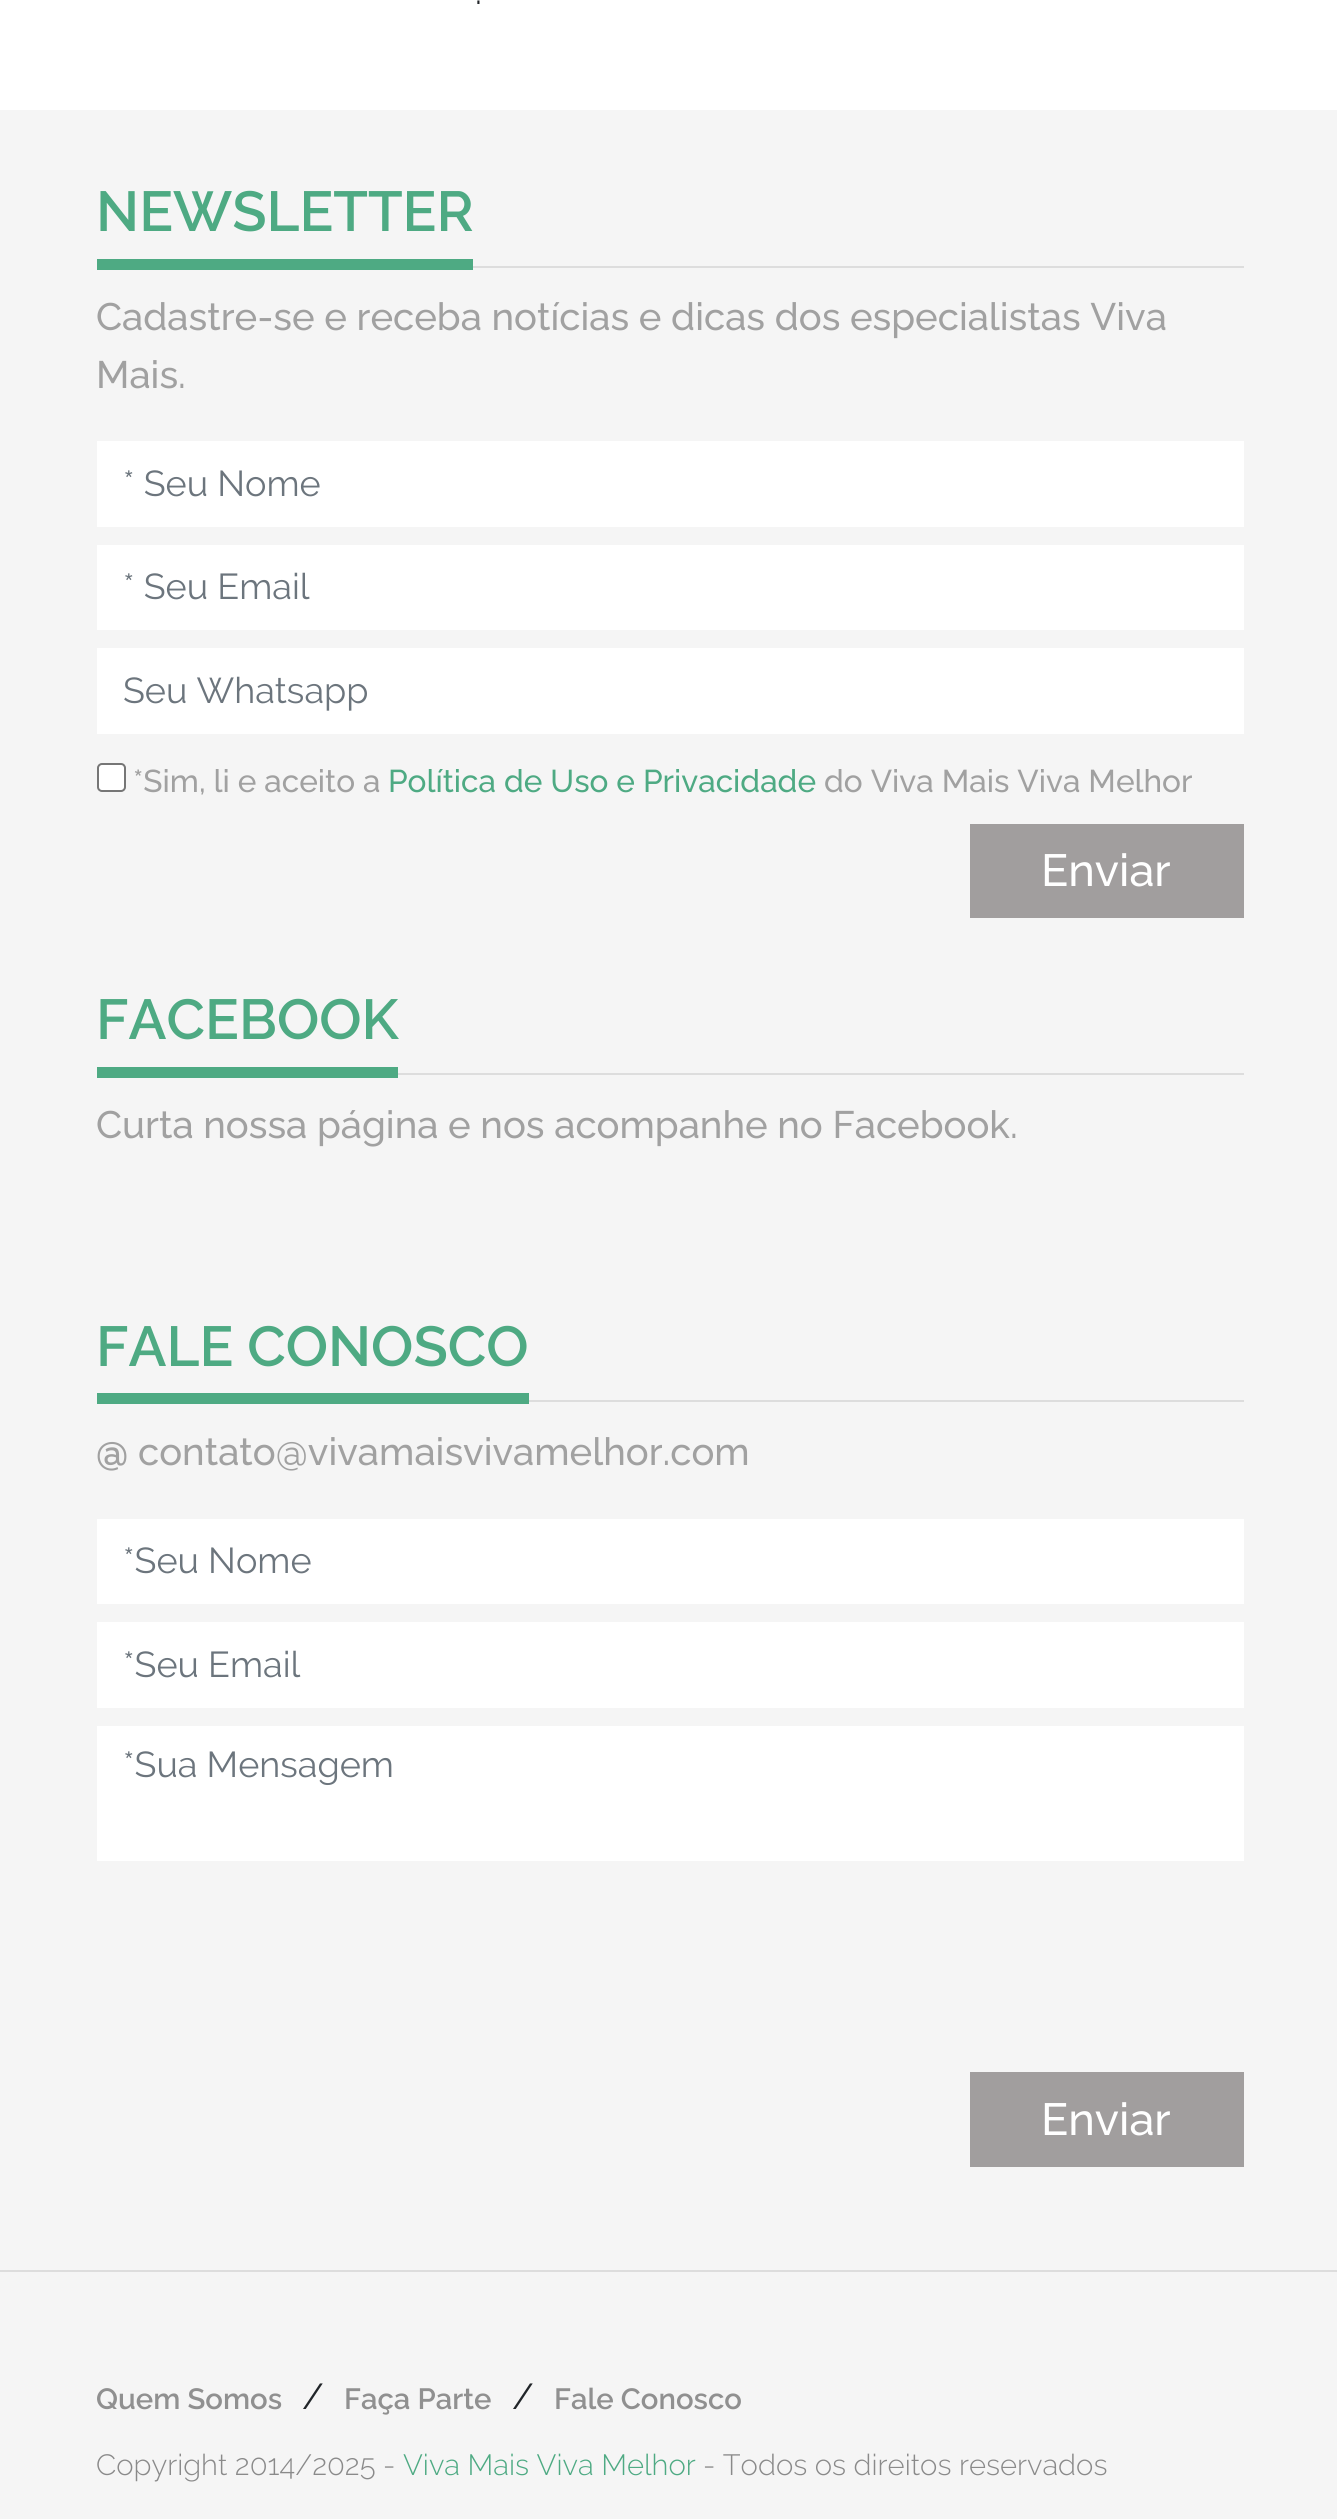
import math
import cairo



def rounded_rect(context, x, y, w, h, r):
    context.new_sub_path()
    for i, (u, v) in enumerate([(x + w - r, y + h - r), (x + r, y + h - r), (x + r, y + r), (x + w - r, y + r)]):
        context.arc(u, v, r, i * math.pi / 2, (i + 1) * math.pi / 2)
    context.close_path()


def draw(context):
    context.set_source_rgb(1, 1, 1)
    context.paint()
    context.set_source_rgb(245 / 255, 245 / 255, 245 / 255)
    context.rectangle(0, 110, 1337, 2409)
    context.fill()
    context.set_source_rgb(78 / 255, 170 / 255, 131 / 255)
    context.rectangle(97, 259, 376, 11)
    context.fill()
    context.set_source_rgb(221 / 255, 221 / 255, 221 / 255)
    context.rectangle(473, 266, 771, 2)
    context.fill()
    context.set_source_rgb(1, 1, 1)
    context.rectangle(97, 441, 1147, 86)
    context.fill()
    context.rectangle(97, 545, 1147, 85)
    context.fill()
    context.rectangle(97, 648, 1147, 86)
    context.fill()
    rounded_rect(context, 98, 764, 27, 27, 4)
    context.fill_preserve()
    context.set_source_rgb(118 / 255, 118 / 255, 118 / 255)
    context.stroke()
    context.set_source_rgb(161 / 255, 158 / 255, 158 / 255)
    context.rectangle(970, 824, 274, 94)
    context.fill()
    context.set_source_rgb(78 / 255, 170 / 255, 131 / 255)
    context.rectangle(97, 1067, 301, 11)
    context.fill()
    context.set_source_rgb(221 / 255, 221 / 255, 221 / 255)
    context.rectangle(398, 1073, 846, 2)
    context.fill()
    context.set_source_rgb(78 / 255, 170 / 255, 131 / 255)
    context.rectangle(97, 1393, 432, 11)
    context.fill()
    context.set_source_rgb(221 / 255, 221 / 255, 221 / 255)
    context.rectangle(529, 1400, 715, 2)
    context.fill()
    context.set_source_rgb(1, 1, 1)
    context.rectangle(97, 1519, 1147, 85)
    context.fill()
    context.rectangle(97, 1622, 1147, 86)
    context.fill()
    context.rectangle(97, 1726, 1147, 135)
    context.fill()
    context.set_source_rgb(161 / 255, 158 / 255, 158 / 255)
    context.rectangle(970, 2072, 274, 95)
    context.fill()
    context.set_source_rgb(221 / 255, 221 / 255, 221 / 255)
    context.rectangle(0, 2270, 1337, 2)
    context.fill()
    context.select_font_face("Raleway")
    context.set_font_size(36)
    context.set_source_rgb(33 / 255, 37 / 255, 41 / 255)
    context.move_to(475, 4)
    context.show_text(".")
    context.select_font_face("Raleway SemiBold")
    context.set_font_size(56.25)
    context.set_source_rgb(78 / 255, 170 / 255, 131 / 255)
    context.move_to(96, 231)
    context.show_text("NEWSLETTER")
    context.select_font_face("Raleway Medium")
    context.set_font_size(38.25)
    context.set_source_rgb(161 / 255, 161 / 255, 161 / 255)
    context.move_to(96, 330)
    context.show_text("Cadastre-se e receba notícias e dicas dos especialistas Viva")
    context.move_to(96, 388)
    context.show_text("Mais.")
    context.select_font_face("Raleway")
    context.set_font_size(36)
    context.set_source_rgb(108 / 255, 117 / 255, 125 / 255)
    context.move_to(123, 496)
    context.show_text("* Seu Nome")
    context.move_to(123, 599)
    context.show_text("* Seu Email")
    context.move_to(123, 703)
    context.show_text("Seu Whatsapp")
    context.select_font_face("Raleway Medium")
    context.set_font_size(31.5)
    context.set_source_rgb(161 / 255, 161 / 255, 161 / 255)
    context.move_to(133, 792)
    context.show_text("*Sim, li e aceito a")
    context.set_source_rgb(78 / 255, 170 / 255, 131 / 255)
    context.move_to(388, 792)
    context.show_text("Política de Uso e Privacidade")
    context.set_source_rgb(161 / 255, 161 / 255, 161 / 255)
    context.move_to(824, 792)
    context.show_text("do Viva Mais Viva Melhor")
    context.set_font_size(45)
    context.set_source_rgb(1, 1, 1)
    context.move_to(1041, 886)
    context.show_text("Enviar")
    context.select_font_face("Raleway SemiBold")
    context.set_font_size(56.25)
    context.set_source_rgb(78 / 255, 170 / 255, 131 / 255)
    context.move_to(96, 1039)
    context.show_text("FACEBOOK")
    context.select_font_face("Raleway Medium")
    context.set_font_size(38.25)
    context.set_source_rgb(161 / 255, 161 / 255, 161 / 255)
    context.move_to(96, 1138)
    context.show_text("Curta nossa página e nos acompanhe no Facebook.")
    context.select_font_face("Raleway SemiBold")
    context.set_font_size(56.25)
    context.set_source_rgb(78 / 255, 170 / 255, 131 / 255)
    context.move_to(96, 1366)
    context.show_text("FALE CONOSCO")
    context.select_font_face("Raleway", cairo.FontSlant.NORMAL, cairo.FontWeight.BOLD)
    context.set_font_size(38.25)
    context.set_source_rgb(161 / 255, 161 / 255, 161 / 255)
    context.move_to(96, 1465)
    context.show_text("@")
    context.select_font_face("Raleway Medium")
    context.move_to(138, 1465)
    context.show_text("contato@vivamaisvivamelhor.com")
    context.select_font_face("Raleway")
    context.set_font_size(36)
    context.set_source_rgb(108 / 255, 117 / 255, 125 / 255)
    context.move_to(123, 1573)
    context.show_text("*Seu Nome")
    context.move_to(123, 1677)
    context.show_text("*Seu Email")
    context.move_to(123, 1777)
    context.show_text("*Sua Mensagem")
    context.select_font_face("Raleway Medium")
    context.set_font_size(45)
    context.set_source_rgb(1, 1, 1)
    context.move_to(1041, 2135)
    context.show_text("Enviar")
    context.select_font_face("Raleway SemiBold")
    context.set_font_size(29.25)
    context.set_source_rgb(144 / 255, 144 / 255, 144 / 255)
    context.move_to(96, 2409)
    context.show_text("Quem Somos")
    context.select_font_face("Raleway")
    context.set_font_size(36)
    context.set_source_rgb(33 / 255, 37 / 255, 41 / 255)
    context.move_to(302, 2409)
    context.show_text("/")
    context.select_font_face("Raleway SemiBold")
    context.set_font_size(29.25)
    context.set_source_rgb(144 / 255, 144 / 255, 144 / 255)
    context.move_to(344, 2409)
    context.show_text("Faça Parte")
    context.select_font_face("Raleway")
    context.set_font_size(36)
    context.set_source_rgb(33 / 255, 37 / 255, 41 / 255)
    context.move_to(512, 2409)
    context.show_text("/")
    context.select_font_face("Raleway SemiBold")
    context.set_font_size(29.25)
    context.set_source_rgb(144 / 255, 144 / 255, 144 / 255)
    context.move_to(554, 2409)
    context.show_text("Fale Conosco")
    context.select_font_face("Raleway Light")
    context.set_source_rgb(138 / 255, 138 / 255, 138 / 255)
    context.move_to(96, 2475)
    context.show_text("Copyright 2014/2025 -")
    context.set_source_rgb(78 / 255, 170 / 255, 131 / 255)
    context.move_to(403, 2475)
    context.show_text("Viva Mais Viva Melhor")
    context.set_source_rgb(138 / 255, 138 / 255, 138 / 255)
    context.move_to(703, 2475)
    context.show_text("- Todos os direitos reservados")


surface = cairo.ImageSurface(cairo.Format.RGB24, 1337, 2519)
context = cairo.Context(surface)
options = cairo.FontOptions()
options.set_hint_metrics(cairo.HintMetrics.OFF)
options.set_hint_style(cairo.HintStyle.NONE)
context.set_font_options(options)
context.set_miter_limit(4)
draw(context)
surface.write_to_png("out.png")
